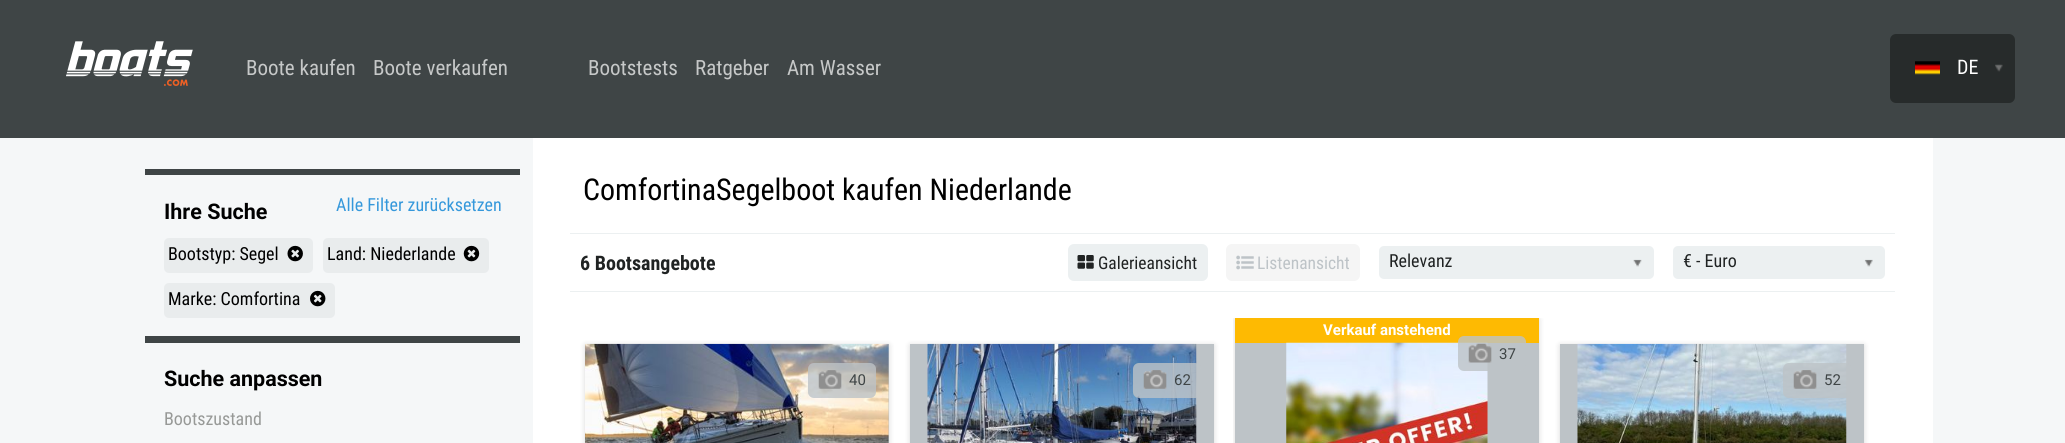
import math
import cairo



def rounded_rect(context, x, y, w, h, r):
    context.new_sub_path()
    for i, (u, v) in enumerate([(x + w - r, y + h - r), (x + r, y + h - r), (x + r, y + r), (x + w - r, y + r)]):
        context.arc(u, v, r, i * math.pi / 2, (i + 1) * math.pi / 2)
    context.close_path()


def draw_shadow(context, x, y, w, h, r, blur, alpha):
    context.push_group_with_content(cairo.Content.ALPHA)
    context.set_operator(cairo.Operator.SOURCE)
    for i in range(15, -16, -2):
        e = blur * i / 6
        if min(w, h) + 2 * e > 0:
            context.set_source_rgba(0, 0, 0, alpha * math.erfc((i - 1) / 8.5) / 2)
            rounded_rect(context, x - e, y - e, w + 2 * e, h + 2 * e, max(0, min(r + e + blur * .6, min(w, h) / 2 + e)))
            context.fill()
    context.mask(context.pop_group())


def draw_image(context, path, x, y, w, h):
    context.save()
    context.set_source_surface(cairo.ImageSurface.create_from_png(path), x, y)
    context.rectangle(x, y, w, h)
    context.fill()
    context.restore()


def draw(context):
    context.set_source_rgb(245 / 255, 247 / 255, 248 / 255)
    context.paint()
    context.set_source_rgb(63 / 255, 69 / 255, 70 / 255)
    context.rectangle(0, 0, 2065, 138)
    context.fill()
    draw_image(context, "images/1.png", 66, 41, 127, 45)
    context.set_source_rgb(39 / 255, 43 / 255, 43 / 255)
    rounded_rect(context, 1890, 34, 125, 69, 6)
    context.fill()
    draw_image(context, "images/2.png", 1915, 61, 25, 14)
    draw_image(context, "images/3.png", 1995, 64, 8, 8)
    context.set_source_rgb(63 / 255, 69 / 255, 70 / 255)
    context.rectangle(145, 169, 375, 6)
    context.fill()
    context.set_source_rgb(233 / 255, 236 / 255, 237 / 255)
    rounded_rect(context, 164, 238, 149, 35, 5)
    context.fill()
    draw_image(context, "images/4.png", 287, 245, 16, 17)
    rounded_rect(context, 323, 238, 166, 35, 5)
    context.fill()
    draw_image(context, "images/5.png", 463, 245, 17, 17)
    rounded_rect(context, 164, 283, 171, 35, 5)
    context.fill()
    draw_image(context, "images/6.png", 310, 290, 16, 17)
    context.set_source_rgb(63 / 255, 69 / 255, 70 / 255)
    context.rectangle(145, 336, 375, 7)
    context.fill()
    context.set_source_rgb(1, 1, 1)
    context.rectangle(533, 138, 1400, 305)
    context.fill()
    context.set_source_rgb(236 / 255, 240 / 255, 241 / 255)
    context.rectangle(570, 233, 1325, 1)
    context.fill()
    context.rectangle(570, 291, 1325, 1)
    context.fill()
    rounded_rect(context, 1068, 244, 140, 37, 6)
    context.fill()
    draw_image(context, "images/7.png", 1077, 255, 17, 14)
    context.set_source_rgb(245 / 255, 245 / 255, 245 / 255)
    rounded_rect(context, 1226, 244, 134, 37, 6)
    context.fill()
    draw_image(context, "images/8.png", 1236, 255, 18, 15)
    context.set_source_rgb(236 / 255, 240 / 255, 241 / 255)
    rounded_rect(context, 1379, 246, 275, 33, 5)
    context.fill()
    draw_image(context, "images/9.png", 1633, 259, 9, 8)
    rounded_rect(context, 1673, 246, 212, 33, 5)
    context.fill()
    draw_image(context, "images/10.png", 1864, 259, 9, 8)
    context.save()
    context.rectangle(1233, 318, 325, 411)
    context.clip()
    context.set_source_rgb(0, 0, 0)
    draw_shadow(context, 1235, 319, 304, 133, 0, 3, 0.15)
    context.restore()
    context.set_source_rgb(254 / 255, 186 / 255, 2 / 255)
    context.rectangle(1235, 318, 304, 25)
    context.fill()
    context.set_source_rgb(189 / 255, 195 / 255, 199 / 255)
    context.rectangle(1235, 343, 304, 100)
    context.fill()
    draw_image(context, "images/11.png", 1286, 342, 202, 101)
    context.set_source_rgba(189 / 255, 195 / 255, 199 / 255, 0.8)
    rounded_rect(context, 1458, 336, 68, 35, 6)
    context.fill()
    draw_image(context, "images/12.png", 1468, 343, 24, 20)
    context.set_source_rgb(0, 0, 0)
    draw_shadow(context, 585, 345, 304, 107, 0, 3, 0.15)
    context.set_source_rgb(189 / 255, 195 / 255, 199 / 255)
    context.rectangle(888, 344, 1, 99)
    context.fill()
    draw_image(context, "images/13.png", 585, 343, 304, 100)
    context.set_source_rgba(189 / 255, 195 / 255, 199 / 255, 0.8)
    rounded_rect(context, 808, 363, 68, 35, 6)
    context.fill()
    draw_image(context, "images/14.png", 818, 370, 24, 19)
    context.set_source_rgb(0, 0, 0)
    draw_shadow(context, 910, 345, 304, 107, 0, 3, 0.15)
    context.set_source_rgb(189 / 255, 195 / 255, 199 / 255)
    context.rectangle(910, 344, 304, 99)
    context.fill()
    draw_image(context, "images/15.png", 927, 343, 270, 100)
    context.set_source_rgba(189 / 255, 195 / 255, 199 / 255, 0.8)
    rounded_rect(context, 1133, 363, 68, 35, 6)
    context.fill()
    draw_image(context, "images/16.png", 1143, 370, 24, 19)
    context.set_source_rgb(0, 0, 0)
    draw_shadow(context, 1560, 345, 304, 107, 0, 3, 0.15)
    context.set_source_rgb(189 / 255, 195 / 255, 199 / 255)
    context.rectangle(1560, 344, 304, 99)
    context.fill()
    draw_image(context, "images/17.png", 1577, 343, 270, 100)
    context.set_source_rgba(189 / 255, 195 / 255, 199 / 255, 0.8)
    rounded_rect(context, 1783, 363, 68, 35, 6)
    context.fill()
    draw_image(context, "images/18.png", 1793, 370, 24, 19)
    context.select_font_face("Roboto Condensed")
    context.set_font_size(21)
    context.set_source_rgb(198 / 255, 200 / 255, 200 / 255)
    context.move_to(246, 75)
    context.show_text("Boote kaufen")
    context.move_to(373, 75)
    context.show_text("Boote verkaufen")
    context.move_to(588, 75)
    context.show_text("Bootstests")
    context.move_to(695, 75)
    context.show_text("Ratgeber")
    context.move_to(787, 75)
    context.show_text("Am Wasser")
    context.set_font_size(20)
    context.set_source_rgb(1, 1, 1)
    context.move_to(1957, 74)
    context.show_text("DE")
    context.select_font_face("Roboto", cairo.FontSlant.NORMAL, cairo.FontWeight.BOLD)
    context.set_font_size(21.5)
    context.set_source_rgb(0, 0, 0)
    context.move_to(164, 219)
    context.show_text("Ihre Suche")
    context.select_font_face("Roboto Condensed")
    context.set_font_size(18)
    context.set_source_rgb(53 / 255, 152 / 255, 219 / 255)
    context.move_to(336, 211)
    context.show_text("Alle Filter zurücksetzen")
    context.set_source_rgb(0, 0, 0)
    context.move_to(168, 260)
    context.show_text("Bootstyp: Segel")
    context.move_to(327, 260)
    context.show_text("Land: Niederlande")
    context.move_to(168, 305)
    context.show_text("Marke: Comfortina")
    context.select_font_face("Roboto", cairo.FontSlant.NORMAL, cairo.FontWeight.BOLD)
    context.set_font_size(21.5)
    context.move_to(164, 386)
    context.show_text("Suche anpassen")
    context.select_font_face("Roboto Condensed")
    context.set_font_size(18)
    context.set_source_rgb(151 / 255, 153 / 255, 151 / 255)
    context.move_to(164, 425)
    context.show_text("Bootszustand")
    context.set_font_size(30)
    context.set_source_rgb(0, 0, 0)
    context.move_to(583, 200)
    context.show_text("ComfortinaSegelboot kaufen Niederlande")
    context.select_font_face("Roboto Condensed", cairo.FontSlant.NORMAL, cairo.FontWeight.BOLD)
    context.set_font_size(20)
    context.set_source_rgb(32 / 255, 35 / 255, 35 / 255)
    context.move_to(580, 270)
    context.show_text("6 Bootsangebote")
    context.select_font_face("Roboto Condensed")
    context.set_font_size(17.5)
    context.move_to(1098, 269)
    context.show_text("Galerieansicht")
    context.set_source_rgb(189 / 255, 195 / 255, 199 / 255)
    context.move_to(1257, 269)
    context.show_text("Listenansicht")
    context.set_font_size(18)
    context.set_source_rgb(32 / 255, 35 / 255, 35 / 255)
    context.move_to(1389, 267)
    context.show_text("Relevanz")
    context.move_to(1683, 267)
    context.show_text("€ - Euro")
    context.select_font_face("Roboto", cairo.FontSlant.NORMAL, cairo.FontWeight.BOLD)
    context.set_font_size(15)
    context.set_source_rgb(1, 1, 1)
    context.move_to(1323, 335)
    context.show_text("Verkauf anstehend")
    context.select_font_face("Roboto")
    context.set_source_rgb(63 / 255, 69 / 255, 70 / 255)
    context.move_to(1499, 359)
    context.show_text("37")
    context.move_to(849, 385)
    context.show_text("40")
    context.move_to(1174, 385)
    context.show_text("62")
    context.move_to(1824, 385)
    context.show_text("52")


surface = cairo.ImageSurface(cairo.Format.RGB24, 2065, 443)
context = cairo.Context(surface)
options = cairo.FontOptions()
options.set_hint_metrics(cairo.HintMetrics.OFF)
options.set_hint_style(cairo.HintStyle.NONE)
context.set_font_options(options)
context.set_miter_limit(4)
draw(context)
surface.write_to_png("out.png")
